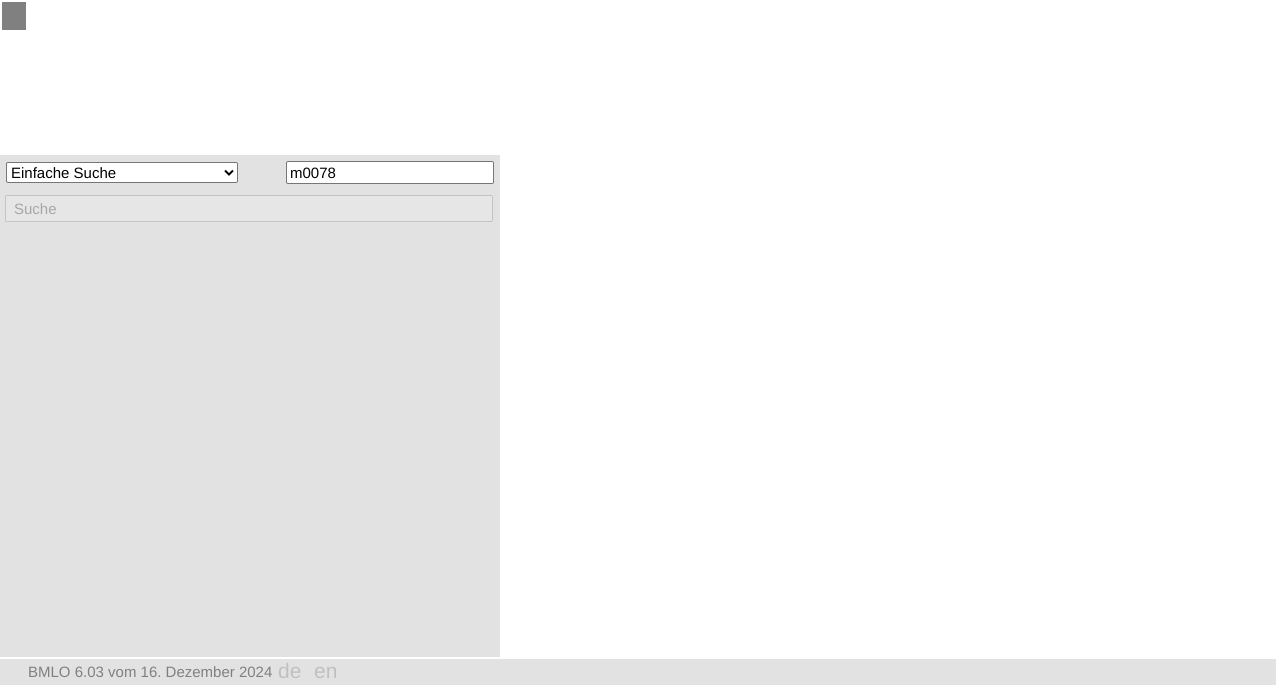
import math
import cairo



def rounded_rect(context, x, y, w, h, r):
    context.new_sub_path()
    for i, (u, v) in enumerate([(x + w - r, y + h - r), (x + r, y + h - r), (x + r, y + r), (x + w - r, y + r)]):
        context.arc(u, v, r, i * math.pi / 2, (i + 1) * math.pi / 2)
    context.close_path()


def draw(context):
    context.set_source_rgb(1, 1, 1)
    context.paint()
    context.set_source_rgb(128 / 255, 128 / 255, 128 / 255)
    context.rectangle(2, 2, 24, 28)
    context.fill()
    context.set_source_rgb(226 / 255, 226 / 255, 226 / 255)
    context.rectangle(0, 155, 500, 502)
    context.fill()
    context.set_source_rgb(1, 1, 1)
    rounded_rect(context, 6.5, 162.5, 231, 20, 1.5)
    context.fill_preserve()
    context.set_source_rgb(118 / 255, 118 / 255, 118 / 255)
    context.set_line_width(1)
    context.stroke()
    context.new_path()
    context.move_to(225, 170.5)
    context.line_to(229, 174.5)
    context.line_to(233, 170.5)
    context.set_source_rgb(0, 0, 0)
    context.set_line_width(2)
    context.stroke()
    context.set_source_rgb(1, 1, 1)
    rounded_rect(context, 286.5, 161.5, 207, 22, 1.5)
    context.fill_preserve()
    context.set_source_rgb(118 / 255, 118 / 255, 118 / 255)
    context.set_line_width(1)
    context.stroke()
    context.set_source_rgb(230 / 255, 230 / 255, 230 / 255)
    rounded_rect(context, 5.5, 195.5, 487, 26, 1.5)
    context.fill_preserve()
    context.set_source_rgb(196 / 255, 196 / 255, 196 / 255)
    context.stroke()
    context.set_source_rgb(226 / 255, 226 / 255, 226 / 255)
    context.rectangle(0, 659, 1276, 26)
    context.fill()
    context.select_font_face("Liberation Sans")
    context.set_font_size(15)
    context.set_source_rgb(0, 0, 0)
    context.move_to(11, 178)
    context.show_text("Einfache Suche")
    context.move_to(290, 178)
    context.show_text("m0078")
    context.set_source_rgb(166 / 255, 166 / 255, 166 / 255)
    context.move_to(14, 214)
    context.show_text("Suche")
    context.set_source_rgb(128 / 255, 128 / 255, 128 / 255)
    context.move_to(28, 677)
    context.show_text("BMLO 6.03 vom 16. Dezember 2024")
    context.set_font_size(21)
    context.set_source_rgb(192 / 255, 192 / 255, 192 / 255)
    context.move_to(278, 678)
    context.show_text("de")
    context.move_to(314, 678)
    context.show_text("en")


surface = cairo.ImageSurface(cairo.Format.RGB24, 1276, 685)
context = cairo.Context(surface)
options = cairo.FontOptions()
options.set_hint_metrics(cairo.HintMetrics.OFF)
options.set_hint_style(cairo.HintStyle.NONE)
context.set_font_options(options)
context.set_miter_limit(4)
draw(context)
surface.write_to_png("out.png")
